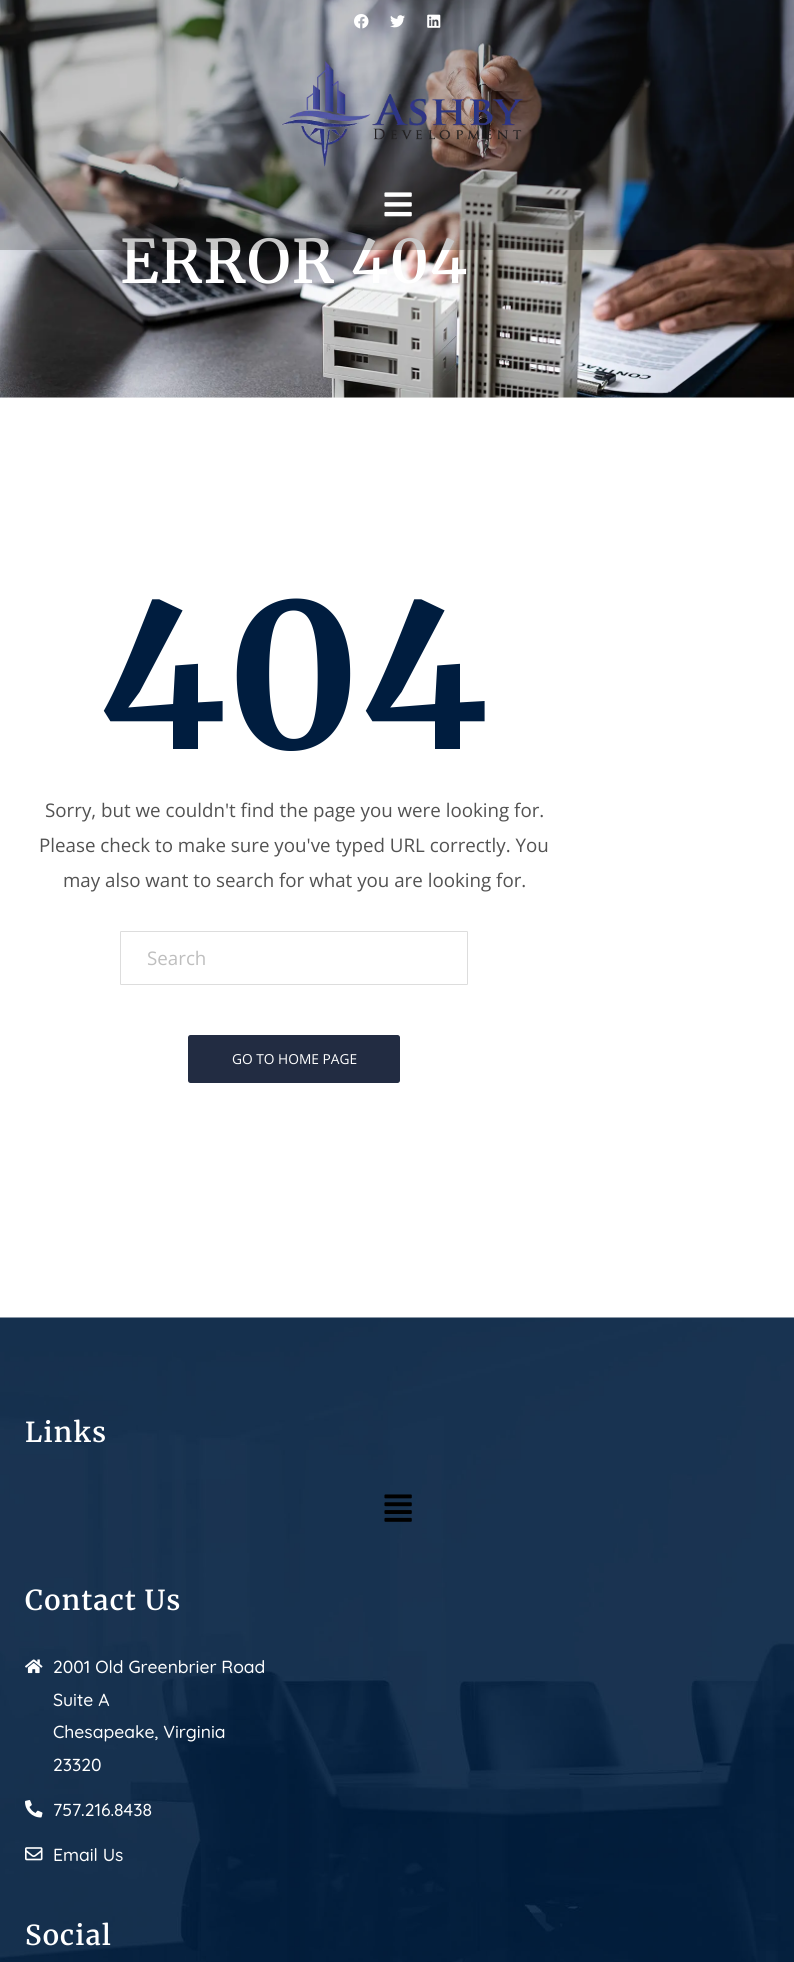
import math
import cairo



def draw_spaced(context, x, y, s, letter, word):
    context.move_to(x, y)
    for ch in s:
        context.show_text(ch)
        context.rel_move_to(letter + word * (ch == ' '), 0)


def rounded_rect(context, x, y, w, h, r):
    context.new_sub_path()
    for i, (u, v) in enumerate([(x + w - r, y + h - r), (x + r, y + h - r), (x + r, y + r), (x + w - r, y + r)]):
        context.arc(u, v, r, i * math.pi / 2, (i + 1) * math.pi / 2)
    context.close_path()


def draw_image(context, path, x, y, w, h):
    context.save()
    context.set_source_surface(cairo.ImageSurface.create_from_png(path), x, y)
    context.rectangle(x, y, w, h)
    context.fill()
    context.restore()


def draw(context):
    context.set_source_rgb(1, 1, 1)
    context.paint()
    context.set_source_rgb(246 / 255, 246 / 255, 246 / 255)
    context.rectangle(0, 397, 794, 1)
    context.fill()
    draw_image(context, "images/6.png", 0, 0, 794, 398)
    context.set_source_rgba(34 / 255, 34 / 255, 34 / 255, 0.25)
    context.rectangle(0, 0, 794, 43)
    context.fill()
    draw_image(context, "images/1.png", 354, 14, 15, 15)
    draw_image(context, "images/2.png", 390, 15, 15, 13)
    draw_image(context, "images/3.png", 427, 14, 14, 14)
    rounded_rect(context, 120.5, 931.5, 347, 53, 0.5)
    context.set_source_rgb(221 / 255, 221 / 255, 221 / 255)
    context.set_line_width(1)
    context.stroke()
    context.set_source_rgb(34 / 255, 44 / 255, 66 / 255)
    rounded_rect(context, 188, 1035, 212, 48, 2.5)
    context.fill()
    draw_image(context, "images/7.png", 0, 1317, 794, 645)
    draw_image(context, "images/8.png", 384, 1494, 28, 28)
    draw_image(context, "images/9.png", 25, 1659, 18, 15)
    draw_image(context, "images/10.png", 25, 1800, 18, 18)
    draw_image(context, "images/11.png", 25, 1847, 18, 14)
    context.select_font_face("Merriweather SemiBold")
    context.set_font_size(60)
    context.set_source_rgb(1, 1, 1)
    draw_spaced(context, 120, 283, "ERROR 404", 1.25, 0)
    context.set_source_rgba(34 / 255, 34 / 255, 34 / 255, 0.25)
    context.rectangle(0, 43, 794, 207)
    context.fill()
    draw_image(context, "images/5.png", 384, 192, 28, 25)
    draw_image(context, "images/4.png", 281, 61, 242, 106)
    context.select_font_face("Merriweather", cairo.FontSlant.NORMAL, cairo.FontWeight.BOLD)
    context.set_font_size(200)
    context.set_source_rgb(0, 29 / 255, 63 / 255)
    draw_spaced(context, 99, 749, "404", 1.25, 0)
    context.select_font_face("Open Sans")
    context.set_font_size(18.75)
    context.set_source_rgb(82 / 255, 82 / 255, 82 / 255)
    context.move_to(45, 817)
    context.show_text("Sorry, but we couldn't find the page you were looking for.")
    context.move_to(39, 852)
    context.show_text("Please check to make sure you've typed URL correctly. You")
    context.move_to(63, 887)
    context.show_text("may also want to search for what you are looking for.")
    context.set_source_rgb(190 / 255, 190 / 255, 190 / 255)
    context.move_to(147, 965)
    context.show_text("Search")
    context.set_font_size(13.75)
    context.set_source_rgb(1, 1, 1)
    context.move_to(232, 1064)
    context.show_text("GO TO HOME PAGE")
    context.select_font_face("Merriweather SemiBold")
    context.set_font_size(27.5)
    draw_spaced(context, 25, 1442, "Links", 1.25, 0)
    draw_spaced(context, 25, 1610, "Contact Us", 1.25, 0)
    context.select_font_face("Quicksand Medium")
    context.set_font_size(17.5)
    context.move_to(53, 1673)
    context.show_text("2001 Old Greenbrier Road")
    context.move_to(53, 1706)
    context.show_text("Suite A")
    context.move_to(53, 1738)
    context.show_text("Chesapeake, Virginia")
    context.move_to(53, 1771)
    context.show_text("23320")
    context.move_to(53, 1816)
    context.show_text("757.216.8438")
    context.move_to(53, 1861)
    context.show_text("Email Us")
    context.select_font_face("Merriweather SemiBold")
    context.set_font_size(27.5)
    draw_spaced(context, 25, 1945, "Social", 1.25, 0)


surface = cairo.ImageSurface(cairo.Format.RGB24, 794, 1962)
context = cairo.Context(surface)
options = cairo.FontOptions()
options.set_hint_metrics(cairo.HintMetrics.OFF)
options.set_hint_style(cairo.HintStyle.NONE)
context.set_font_options(options)
context.set_miter_limit(4)
draw(context)
surface.write_to_png("out.png")
